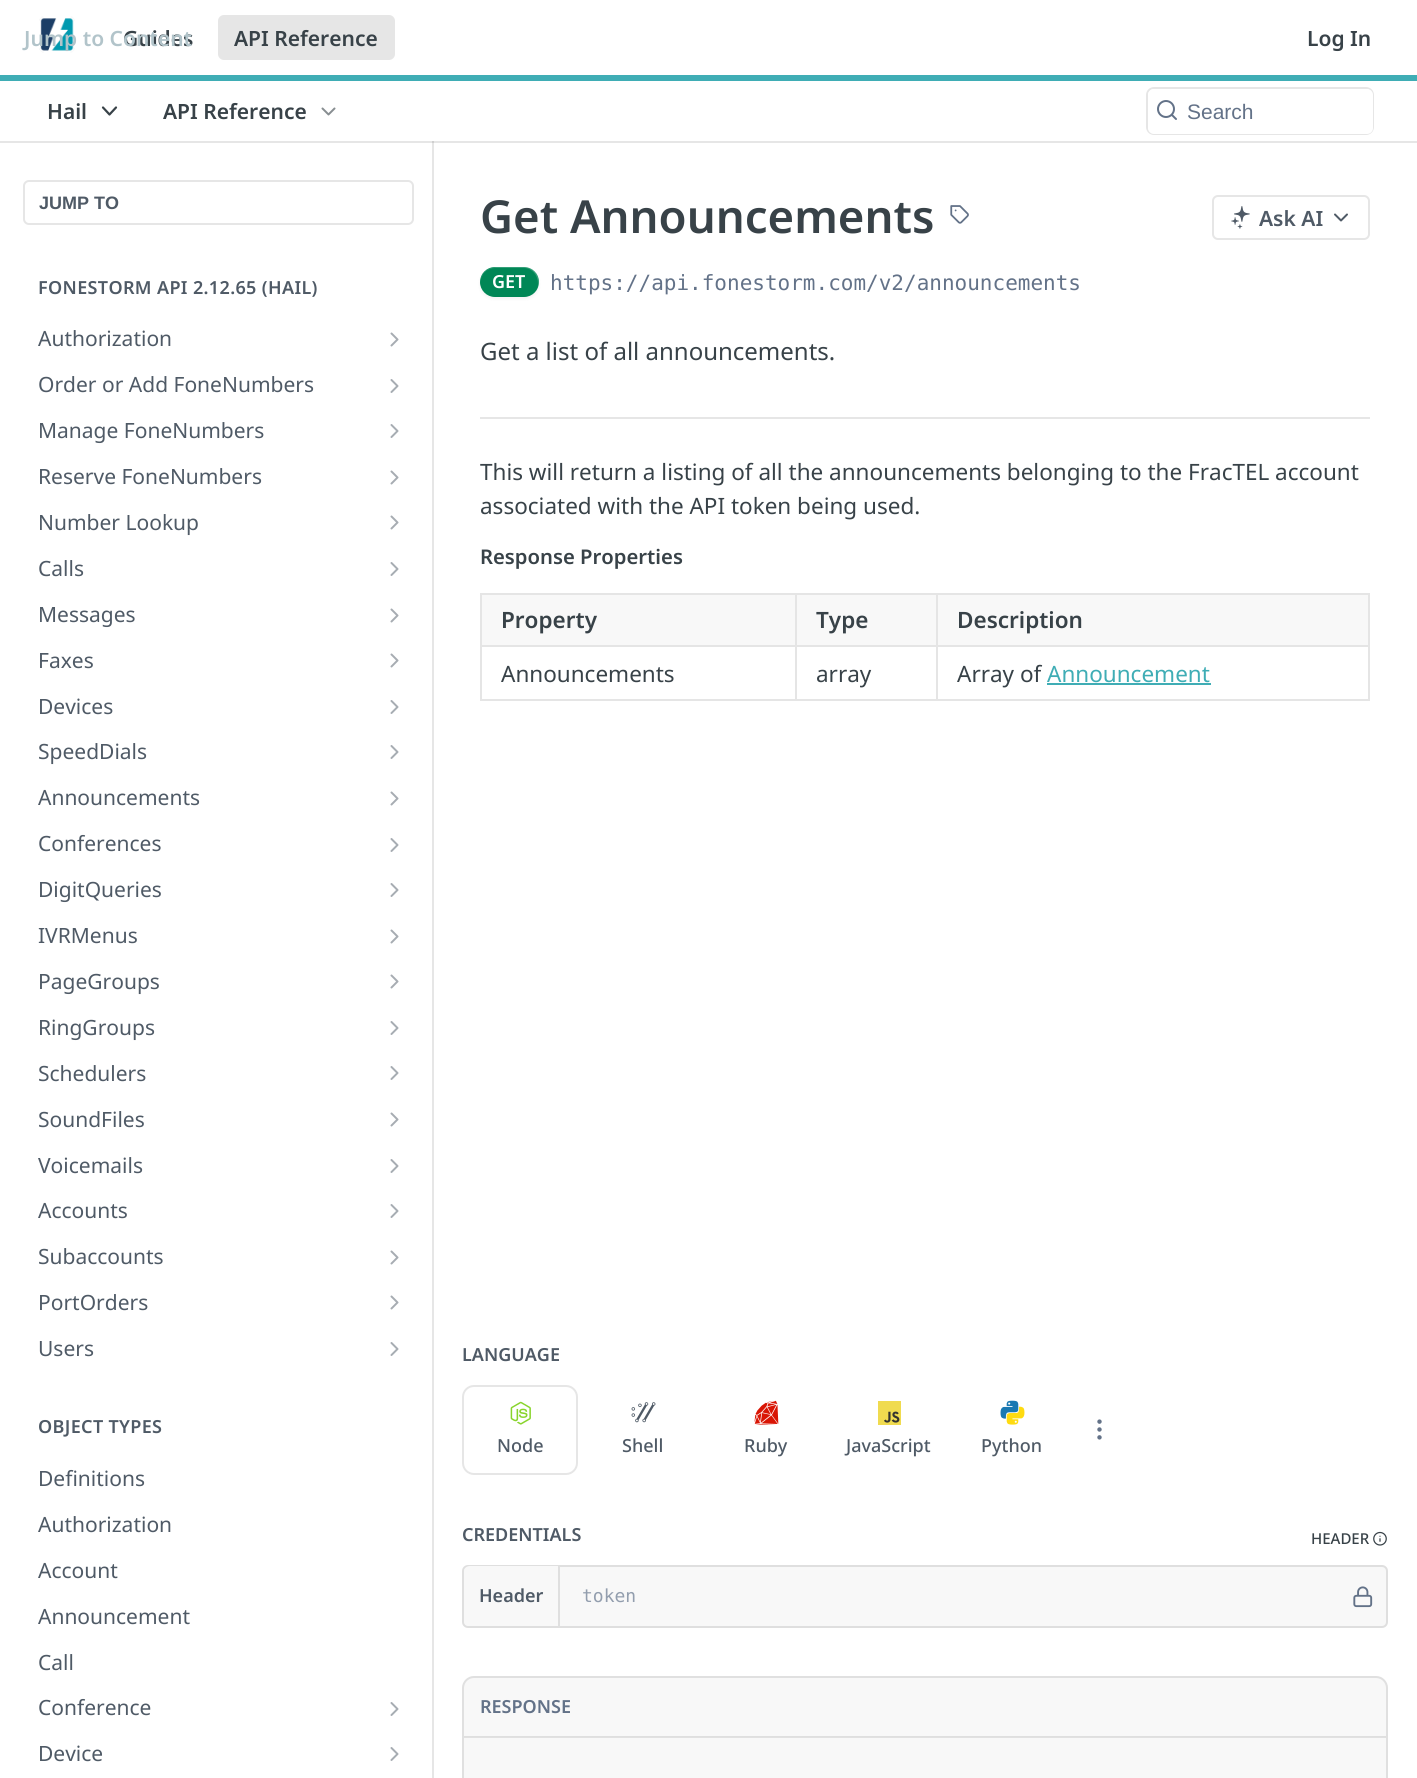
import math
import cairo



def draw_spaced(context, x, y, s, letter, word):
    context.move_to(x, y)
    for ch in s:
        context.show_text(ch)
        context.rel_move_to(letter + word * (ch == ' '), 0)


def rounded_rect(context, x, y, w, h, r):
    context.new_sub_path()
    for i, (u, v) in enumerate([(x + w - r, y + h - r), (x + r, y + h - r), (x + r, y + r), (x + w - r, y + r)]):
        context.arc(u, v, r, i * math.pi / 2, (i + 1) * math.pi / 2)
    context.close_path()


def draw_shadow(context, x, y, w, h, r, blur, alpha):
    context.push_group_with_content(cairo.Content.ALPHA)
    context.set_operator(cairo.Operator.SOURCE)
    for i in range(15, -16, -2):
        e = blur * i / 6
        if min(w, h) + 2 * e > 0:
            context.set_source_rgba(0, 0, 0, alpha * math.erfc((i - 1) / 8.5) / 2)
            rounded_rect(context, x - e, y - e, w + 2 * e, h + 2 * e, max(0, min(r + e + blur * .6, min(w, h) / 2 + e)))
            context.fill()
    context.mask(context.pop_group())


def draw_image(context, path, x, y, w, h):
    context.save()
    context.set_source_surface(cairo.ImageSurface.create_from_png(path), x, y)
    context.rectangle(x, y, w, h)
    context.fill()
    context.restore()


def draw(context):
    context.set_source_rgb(1, 1, 1)
    context.paint()
    context.set_source_rgb(230 / 255, 230 / 255, 230 / 255)
    context.rectangle(432, 141, 2, 1637)
    context.fill()
    context.set_source_rgba(0, 0, 0, 0.1)
    context.new_path()
    context.move_to(0, 141)
    context.line_to(0, 143)
    context.line_to(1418, 143)
    context.line_to(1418, 2)
    context.line_to(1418, 141)
    context.close_path()
    context.fill()
    context.set_source_rgb(63 / 255, 173 / 255, 181 / 255)
    context.rectangle(0, 75, 1417, 6)
    context.fill()
    draw_image(context, "images/1.png", 39, 16, 36, 37)
    context.set_source_rgb(230 / 255, 230 / 255, 230 / 255)
    rounded_rect(context, 218, 15, 177, 45, 6)
    context.fill()
    context.new_path()
    context.move_to(103, 107.5)
    context.line_to(109.5, 114.5)
    context.line_to(116, 107.5)
    context.set_source_rgb(56 / 255, 66 / 255, 72 / 255)
    context.set_line_width(2.2)
    context.set_line_cap(cairo.LineCap.ROUND)
    context.set_line_join(cairo.LineJoin.ROUND)
    context.stroke()
    draw_image(context, "images/2.png", 321, 107, 15, 9)
    rounded_rect(context, 1147, 88, 226, 46, 7)
    context.set_source_rgb(230 / 255, 230 / 255, 230 / 255)
    context.set_line_width(2)
    context.set_line_cap(cairo.LineCap.BUTT)
    context.set_line_join(cairo.LineJoin.MITER)
    context.stroke()
    context.set_source_rgb(1, 1, 1)
    rounded_rect(context, 1148, 89, 225, 45, 6)
    context.fill()
    draw_image(context, "images/3.png", 1157, 100, 20, 20)
    rounded_rect(context, 24, 181, 389, 43, 5)
    context.set_source_rgb(230 / 255, 230 / 255, 230 / 255)
    context.stroke()
    draw_image(context, "images/4.png", 390, 332, 9, 15)
    draw_image(context, "images/5.png", 390, 379, 9, 14)
    draw_image(context, "images/5.png", 390, 424, 9, 14)
    draw_image(context, "images/4.png", 390, 470, 9, 15)
    draw_image(context, "images/4.png", 390, 515, 9, 15)
    draw_image(context, "images/5.png", 390, 562, 9, 14)
    draw_image(context, "images/4.png", 390, 608, 9, 15)
    draw_image(context, "images/4.png", 390, 653, 9, 15)
    draw_image(context, "images/5.png", 390, 700, 9, 14)
    draw_image(context, "images/5.png", 390, 745, 9, 14)
    draw_image(context, "images/4.png", 390, 791, 9, 15)
    draw_image(context, "images/5.png", 390, 838, 9, 14)
    draw_image(context, "images/5.png", 390, 883, 9, 14)
    draw_image(context, "images/4.png", 390, 929, 9, 15)
    draw_image(context, "images/4.png", 390, 974, 9, 15)
    draw_image(context, "images/5.png", 390, 1021, 9, 14)
    draw_image(context, "images/5.png", 390, 1066, 9, 14)
    draw_image(context, "images/4.png", 390, 1112, 9, 15)
    draw_image(context, "images/5.png", 390, 1159, 9, 14)
    draw_image(context, "images/5.png", 390, 1204, 9, 14)
    draw_image(context, "images/4.png", 390, 1250, 9, 15)
    draw_image(context, "images/4.png", 390, 1295, 9, 15)
    draw_image(context, "images/5.png", 390, 1342, 9, 14)
    draw_image(context, "images/5.png", 390, 1702, 9, 14)
    draw_image(context, "images/5.png", 390, 1747, 9, 14)
    context.rectangle(480, 417, 890, 2)
    context.fill()
    draw_image(context, "images/6.png", 950, 205, 19, 19)
    rounded_rect(context, 1213, 196, 156, 43, 5)
    context.stroke()
    draw_image(context, "images/7.png", 1231, 206, 19, 23)
    context.new_path()
    context.move_to(1335, 214.5)
    context.line_to(1341, 220.5)
    context.line_to(1347, 214.5)
    context.set_source_rgb(79 / 255, 90 / 255, 102 / 255)
    context.set_line_cap(cairo.LineCap.ROUND)
    context.set_line_join(cairo.LineJoin.ROUND)
    context.stroke()
    context.set_source_rgb(0, 0, 0)
    draw_shadow(context, 480, 269, 59, 30, 15, 1.5, 0.05)
    context.set_source_rgb(0, 135 / 255, 86 / 255)
    rounded_rect(context, 480, 267, 59, 30, 15)
    context.fill()
    context.set_source_rgba(1, 1, 1, 0.2)
    context.new_path()
    context.move_to(495, 268)
    context.line_to(524, 268)
    context.curve_to(532, 268, 538, 275, 538, 284)
    context.curve_to(538, 286, 538, 288, 537, 290)
    context.curve_to(542, 281, 537, 269, 527, 267)
    context.line_to(510, 267)
    context.curve_to(500, 267, 489, 265, 483, 274)
    context.curve_to(481, 276, 480, 280, 480, 283)
    context.curve_to(481, 274, 487, 268, 495, 268)
    context.close_path()
    context.fill()
    context.set_source_rgb(229 / 255, 229 / 255, 229 / 255)
    context.rectangle(480, 593, 890, 2)
    context.fill()
    context.rectangle(1368, 593, 2, 108)
    context.fill()
    context.rectangle(480, 699, 890, 2)
    context.fill()
    context.rectangle(480, 593, 2, 108)
    context.fill()
    context.set_source_rgb(248 / 255, 248 / 255, 248 / 255)
    context.rectangle(482, 595, 886, 50)
    context.fill()
    context.set_source_rgb(229 / 255, 229 / 255, 229 / 255)
    context.rectangle(936, 645, 434, 2)
    context.fill()
    context.rectangle(936, 645, 2, 56)
    context.fill()
    context.rectangle(795, 645, 143, 2)
    context.fill()
    context.rectangle(795, 645, 2, 56)
    context.fill()
    context.rectangle(480, 645, 317, 2)
    context.fill()
    context.rectangle(795, 593, 2, 54)
    context.fill()
    context.rectangle(936, 593, 2, 54)
    context.fill()
    context.set_source_rgb(63 / 255, 173 / 255, 181 / 255)
    context.rectangle(1047, 683, 164, 2)
    context.fill()
    draw_image(context, "images/8.png", 1097, 1419, 5, 21)
    rounded_rect(context, 463, 1386, 114, 88, 11)
    context.set_source_rgb(230 / 255, 230 / 255, 230 / 255)
    context.set_line_cap(cairo.LineCap.BUTT)
    context.set_line_join(cairo.LineJoin.MITER)
    context.stroke()
    draw_image(context, "images/9.png", 510, 1401, 21, 24)
    draw_image(context, "images/10.png", 631, 1402, 25, 21)
    draw_image(context, "images/11.png", 754, 1400, 25, 25)
    context.set_source_rgb(240 / 255, 219 / 255, 79 / 255)
    context.rectangle(878, 1401, 23, 24)
    context.fill()
    draw_image(context, "images/12.png", 884, 1411, 16, 12)
    draw_image(context, "images/13.png", 1000, 1400, 19, 19)
    draw_image(context, "images/14.png", 1006, 1406, 19, 19)
    draw_image(context, "images/15.png", 1373, 1531, 14, 15)
    context.set_source_rgb(248 / 255, 248 / 255, 248 / 255)
    rounded_rect(context, 463, 1566, 924, 61, 5)
    context.fill_preserve()
    context.set_source_rgb(223 / 255, 223 / 255, 223 / 255)
    context.stroke()
    context.set_source_rgb(248 / 255, 248 / 255, 248 / 255)
    context.new_path()
    context.move_to(470, 1566)
    context.line_to(560, 1566)
    context.line_to(560, 1626)
    context.line_to(470, 1626)
    context.curve_to(466.5, 1626, 464, 1623.5, 464, 1620)
    context.line_to(464, 1572)
    context.curve_to(464, 1568.5, 466.5, 1566, 470, 1566)
    context.close_path()
    context.fill()
    context.set_source_rgb(223 / 255, 223 / 255, 223 / 255)
    context.rectangle(558, 1566, 2, 60)
    context.fill()
    draw_image(context, "images/16.png", 1353, 1586, 20, 22)
    context.set_source_rgb(248 / 255, 248 / 255, 248 / 255)
    context.new_path()
    context.move_to(474, 1676)
    context.line_to(1376, 1676)
    context.curve_to(1382.5, 1676, 1388, 1681.5, 1388, 1688)
    context.line_to(1388, 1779)
    context.line_to(462, 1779)
    context.line_to(462, 1688)
    context.curve_to(462, 1681.5, 467.5, 1676, 474, 1676)
    context.close_path()
    context.fill()
    rounded_rect(context, 463, 1677, 924, 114, 11)
    context.set_source_rgba(0, 0, 0, 0.1)
    context.stroke()
    context.set_source_rgb(223 / 255, 223 / 255, 223 / 255)
    context.rectangle(464, 1736, 922, 1)
    context.fill()
    context.set_source_rgb(225 / 255, 225 / 255, 225 / 255)
    context.rectangle(464, 1737, 922, 1)
    context.fill()
    context.select_font_face("Noto Sans SemiBold")
    context.set_font_size(21)
    context.set_source_rgb(56 / 255, 66 / 255, 72 / 255)
    context.move_to(123, 46)
    context.show_text("Guides")
    context.set_source_rgb(178 / 255, 196 / 255, 202 / 255)
    context.move_to(24, 46)
    context.show_text("Jump to Content")
    context.set_source_rgb(56 / 255, 66 / 255, 72 / 255)
    context.move_to(234, 46)
    context.show_text("API Reference")
    context.move_to(1307, 46)
    context.show_text("Log In")
    context.move_to(47, 119)
    context.show_text("Hail")
    context.move_to(163, 119)
    context.show_text("API Reference")
    context.select_font_face("Liberation Sans")
    context.set_source_rgb(99 / 255, 114 / 255, 136 / 255)
    context.move_to(1187, 119)
    context.show_text("Search")
    context.select_font_face("Liberation Sans", cairo.FontSlant.NORMAL, cairo.FontWeight.BOLD)
    context.set_font_size(18)
    context.set_source_rgb(79 / 255, 90 / 255, 102 / 255)
    context.move_to(39, 209)
    context.show_text("JUMP TO")
    context.select_font_face("Noto Sans SemiBold")
    draw_spaced(context, 38, 294, "FONESTORM API 2.12.65 (HAIL)", 0.35, 0)
    context.select_font_face("Noto Sans")
    context.set_font_size(21)
    context.move_to(38, 346)
    context.show_text("Authorization")
    context.move_to(38, 392)
    context.show_text("Order or Add FoneNumbers")
    context.move_to(38, 438)
    context.show_text("Manage FoneNumbers")
    context.move_to(38, 484)
    context.show_text("Reserve FoneNumbers")
    context.move_to(38, 530)
    context.show_text("Number Lookup")
    context.move_to(38, 576)
    context.show_text("Calls")
    context.move_to(38, 622)
    context.show_text("Messages")
    context.move_to(38, 668)
    context.show_text("Faxes")
    context.move_to(38, 714)
    context.show_text("Devices")
    context.move_to(38, 759)
    context.show_text("SpeedDials")
    context.move_to(38, 805)
    context.show_text("Announcements")
    context.move_to(38, 851)
    context.show_text("Conferences")
    context.move_to(38, 897)
    context.show_text("DigitQueries")
    context.move_to(38, 943)
    context.show_text("IVRMenus")
    context.move_to(38, 989)
    context.show_text("PageGroups")
    context.move_to(38, 1035)
    context.show_text("RingGroups")
    context.move_to(38, 1081)
    context.show_text("Schedulers")
    context.move_to(38, 1127)
    context.show_text("SoundFiles")
    context.move_to(38, 1173)
    context.show_text("Voicemails")
    context.move_to(38, 1218)
    context.show_text("Accounts")
    context.move_to(38, 1264)
    context.show_text("Subaccounts")
    context.move_to(38, 1310)
    context.show_text("PortOrders")
    context.move_to(38, 1356)
    context.show_text("Users")
    context.select_font_face("Noto Sans SemiBold")
    context.set_font_size(18)
    draw_spaced(context, 38, 1433, "OBJECT TYPES", 0.35, 0)
    context.select_font_face("Noto Sans")
    context.set_font_size(21)
    context.move_to(38, 1486)
    context.show_text("Definitions")
    context.move_to(38, 1532)
    context.show_text("Authorization")
    context.move_to(38, 1578)
    context.show_text("Account")
    context.move_to(38, 1624)
    context.show_text("Announcement")
    context.move_to(38, 1670)
    context.show_text("Call")
    context.move_to(38, 1715)
    context.show_text("Conference")
    context.move_to(38, 1761)
    context.show_text("Device")
    context.select_font_face("Noto Sans SemiBold")
    context.set_font_size(45.5)
    context.set_source_rgb(56 / 255, 66 / 255, 72 / 255)
    context.move_to(480, 233)
    context.show_text("Get Announcements")
    context.set_font_size(21)
    context.set_source_rgb(79 / 255, 90 / 255, 102 / 255)
    context.move_to(1259, 226)
    context.show_text("Ask AI")
    context.set_font_size(18)
    context.set_source_rgb(1, 1, 1)
    context.move_to(492, 288)
    context.show_text("GET")
    context.select_font_face("DejaVu Sans Mono")
    context.set_font_size(21)
    context.set_source_rgb(99 / 255, 114 / 255, 136 / 255)
    context.move_to(550, 290)
    context.show_text("https://api.fonestorm.com/v2/announcements")
    context.select_font_face("Noto Sans")
    context.set_font_size(24)
    context.set_source_rgb(56 / 255, 66 / 255, 72 / 255)
    context.move_to(480, 360)
    context.show_text("Get a list of all announcements.")
    context.set_font_size(22.5)
    context.move_to(480, 480)
    context.show_text("This will return a listing of all the announcements belonging to the FracTEL account")
    context.move_to(480, 514)
    context.show_text("associated with the API token being used.")
    context.select_font_face("Noto Sans SemiBold")
    context.set_font_size(20.25)
    context.move_to(480, 564)
    context.show_text("Response Properties")
    context.set_font_size(22.5)
    context.move_to(501, 628)
    context.show_text("Property")
    context.move_to(816, 628)
    context.show_text("Type")
    context.move_to(957, 628)
    context.show_text("Description")
    context.select_font_face("Noto Sans")
    context.move_to(501, 682)
    context.show_text("Announcements")
    context.move_to(816, 682)
    context.show_text("array")
    context.move_to(957, 682)
    context.show_text("Array of")
    context.set_source_rgb(63 / 255, 173 / 255, 181 / 255)
    context.move_to(1047, 682)
    context.show_text("Announcement")
    context.select_font_face("Noto Sans SemiBold")
    context.set_font_size(18)
    context.set_source_rgb(79 / 255, 90 / 255, 102 / 255)
    context.move_to(462, 1361)
    context.show_text("LANGUAGE")
    context.select_font_face("Noto Sans Medium")
    context.move_to(497, 1452)
    context.show_text("Node")
    context.move_to(622, 1452)
    context.show_text("Shell")
    context.move_to(744, 1452)
    context.show_text("Ruby")
    context.move_to(846, 1452)
    context.show_text("JavaScript")
    context.move_to(981, 1452)
    context.show_text("Python")
    context.select_font_face("Noto Sans SemiBold")
    context.move_to(462, 1541)
    context.show_text("CREDENTIALS")
    context.select_font_face("Noto Sans Medium")
    context.set_font_size(15)
    context.set_source_rgb(56 / 255, 66 / 255, 72 / 255)
    context.move_to(1311, 1544)
    context.show_text("HEADER")
    context.select_font_face("Noto Sans SemiBold")
    context.set_font_size(18)
    context.set_source_rgb(79 / 255, 90 / 255, 102 / 255)
    context.move_to(479, 1602)
    context.show_text("Header")
    context.select_font_face("DejaVu Sans Mono")
    context.set_source_rgb(147 / 255, 158 / 255, 174 / 255)
    context.move_to(582, 1602)
    context.show_text("token")
    context.select_font_face("Noto Sans SemiBold")
    context.set_source_rgb(99 / 255, 114 / 255, 136 / 255)
    context.move_to(480, 1713)
    context.show_text("RESPONSE")


surface = cairo.ImageSurface(cairo.Format.RGB24, 1417, 1778)
context = cairo.Context(surface)
options = cairo.FontOptions()
options.set_hint_metrics(cairo.HintMetrics.OFF)
options.set_hint_style(cairo.HintStyle.NONE)
context.set_font_options(options)
context.set_miter_limit(4)
draw(context)
surface.write_to_png("out.png")
